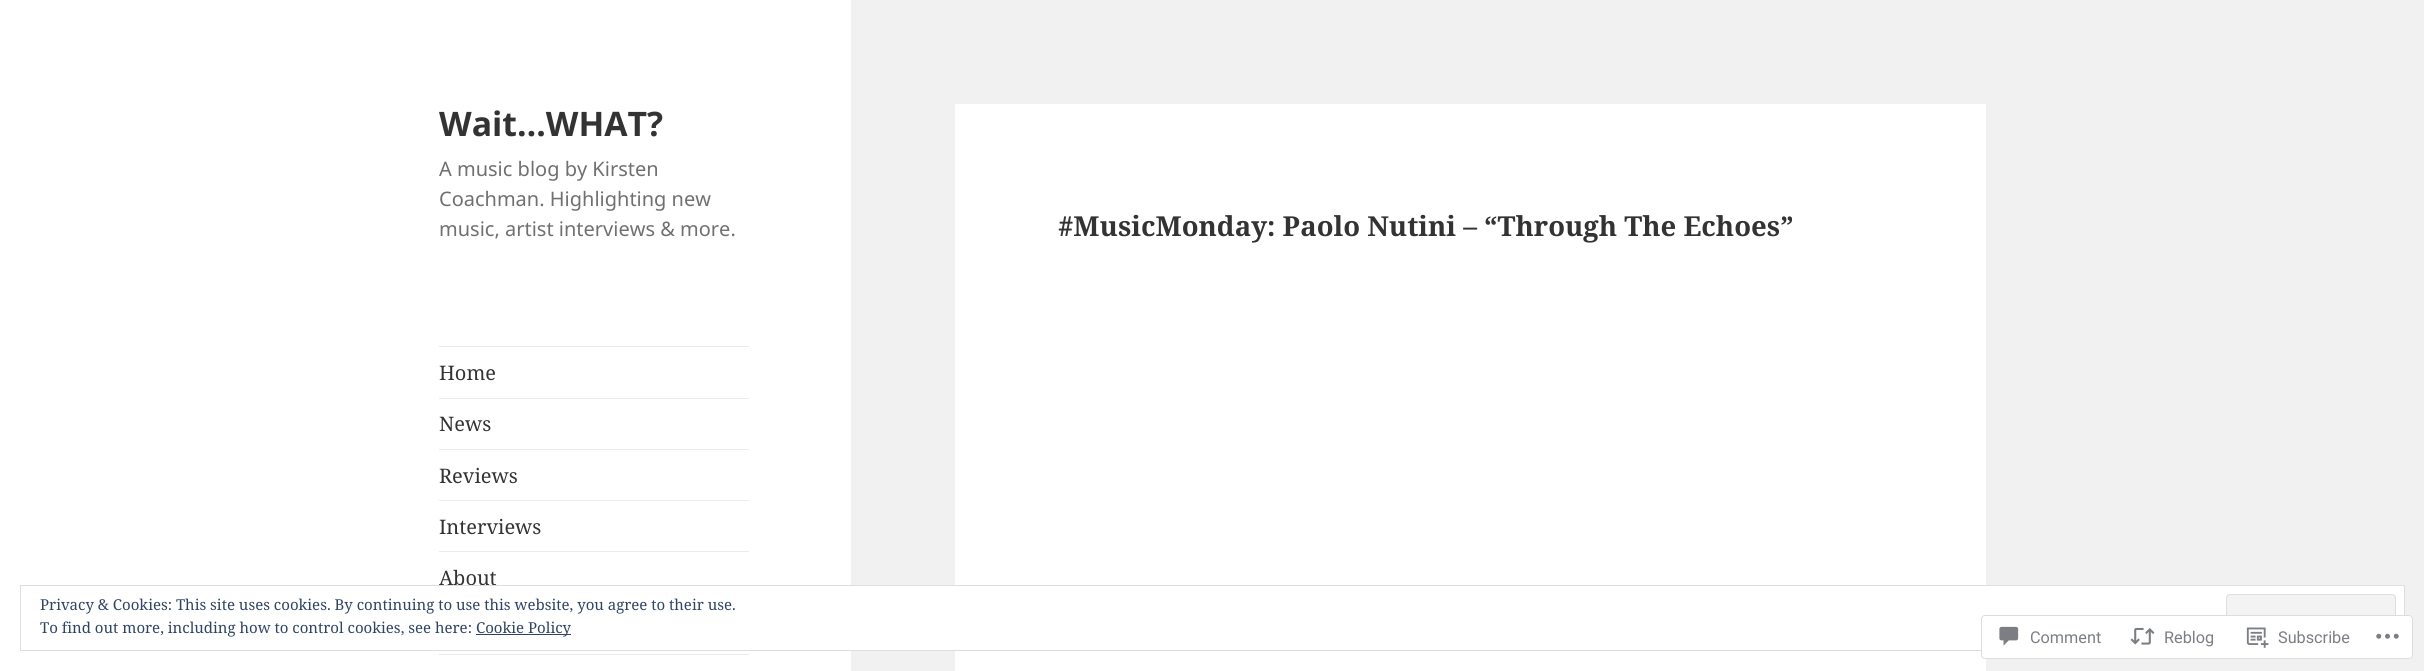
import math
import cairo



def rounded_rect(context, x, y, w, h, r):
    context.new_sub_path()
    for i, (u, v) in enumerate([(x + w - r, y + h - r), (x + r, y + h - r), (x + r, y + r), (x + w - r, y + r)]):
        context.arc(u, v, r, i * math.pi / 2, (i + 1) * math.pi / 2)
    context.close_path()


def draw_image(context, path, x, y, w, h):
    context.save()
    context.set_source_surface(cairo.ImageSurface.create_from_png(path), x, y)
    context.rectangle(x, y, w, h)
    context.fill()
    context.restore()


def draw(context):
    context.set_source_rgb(241 / 255, 241 / 255, 241 / 255)
    context.paint()
    context.set_source_rgb(1, 1, 1)
    context.rectangle(0, 0, 851, 671)
    context.fill()
    context.set_source_rgb(235 / 255, 235 / 255, 235 / 255)
    context.rectangle(439, 346, 310, 1)
    context.fill()
    context.rectangle(439, 654, 310, 1)
    context.fill()
    context.rectangle(439, 398, 310, 1)
    context.fill()
    context.rectangle(439, 449, 310, 1)
    context.fill()
    context.rectangle(439, 500, 310, 1)
    context.fill()
    context.rectangle(439, 551, 310, 1)
    context.fill()
    context.set_source_rgb(1, 1, 1)
    context.rectangle(955, 104, 1031, 567)
    context.fill()
    context.rectangle(851, 586, 1553, 64)
    context.fill()
    context.select_font_face("Noto Sans", cairo.FontSlant.NORMAL, cairo.FontWeight.BOLD)
    context.set_font_size(33.75)
    context.set_source_rgb(51 / 255, 51 / 255, 51 / 255)
    context.move_to(439, 136)
    context.show_text("Wait…WHAT?")
    context.select_font_face("Noto Sans")
    context.set_font_size(20)
    context.set_source_rgb(112 / 255, 112 / 255, 112 / 255)
    context.move_to(439, 176)
    context.show_text("A music blog by Kirsten")
    context.move_to(439, 206)
    context.show_text("Coachman. Highlighting new")
    context.move_to(439, 236)
    context.show_text("music, artist interviews & more.")
    context.select_font_face("Noto Serif")
    context.set_source_rgb(51 / 255, 51 / 255, 51 / 255)
    context.move_to(439, 380)
    context.show_text("Home")
    context.move_to(439, 431)
    context.show_text("News")
    context.move_to(439, 483)
    context.show_text("Reviews")
    context.move_to(439, 534)
    context.show_text("Interviews")
    context.move_to(439, 585)
    context.show_text("About")
    context.select_font_face("Noto Serif", cairo.FontSlant.NORMAL, cairo.FontWeight.BOLD)
    context.set_font_size(27.5)
    context.move_to(1058, 236)
    context.show_text("#MusicMonday: Paolo Nutini – “Through The Echoes”")
    context.rectangle(20.5, 585.5, 2384, 65)
    context.set_source_rgb(222 / 255, 222 / 255, 222 / 255)
    context.set_line_width(1)
    context.stroke()
    context.select_font_face("Noto Serif")
    context.set_font_size(15)
    context.set_source_rgb(46 / 255, 68 / 255, 103 / 255)
    context.move_to(40, 610)
    context.show_text("Privacy & Cookies: This site uses cookies. By continuing to use this website, you agree to their use.")
    context.set_source_rgb(243 / 255, 243 / 255, 243 / 255)
    rounded_rect(context, 2226.5, 594.5, 169, 48, 3.5)
    context.fill_preserve()
    context.set_source_rgb(222 / 255, 222 / 255, 222 / 255)
    context.stroke()
    context.set_source_rgb(46 / 255, 68 / 255, 103 / 255)
    context.move_to(40, 633)
    context.show_text("To find out more, including how to control cookies, see here:")
    context.rectangle(476, 634, 95, 1)
    context.fill()
    context.move_to(476, 633)
    context.show_text("Cookie Policy")
    context.set_source_rgba(1, 1, 1, 0.98)
    rounded_rect(context, 1981, 615, 432, 44, 4)
    context.fill()
    rounded_rect(context, 1981.5, 615.5, 431, 43, 3.5)
    context.set_source_rgba(220 / 255, 220 / 255, 222 / 255, 0.98)
    context.stroke()
    draw_image(context, "images/1.png", 1999, 626, 20, 20)
    context.select_font_face("Roboto")
    context.set_font_size(16.25)
    context.set_source_rgb(123 / 255, 127 / 255, 133 / 255)
    context.move_to(2030, 643)
    context.show_text("Comment")
    draw_image(context, "images/2.png", 2130, 627, 25, 18)
    context.move_to(2164, 643)
    context.show_text("Reblog")
    draw_image(context, "images/3.png", 2246, 627, 23, 21)
    context.move_to(2278, 643)
    context.show_text("Subscribe")
    draw_image(context, "images/4.png", 2376, 633, 23, 6)


surface = cairo.ImageSurface(cairo.Format.RGB24, 2424, 671)
context = cairo.Context(surface)
options = cairo.FontOptions()
options.set_hint_metrics(cairo.HintMetrics.OFF)
options.set_hint_style(cairo.HintStyle.NONE)
context.set_font_options(options)
context.set_miter_limit(4)
draw(context)
surface.write_to_png("out.png")
